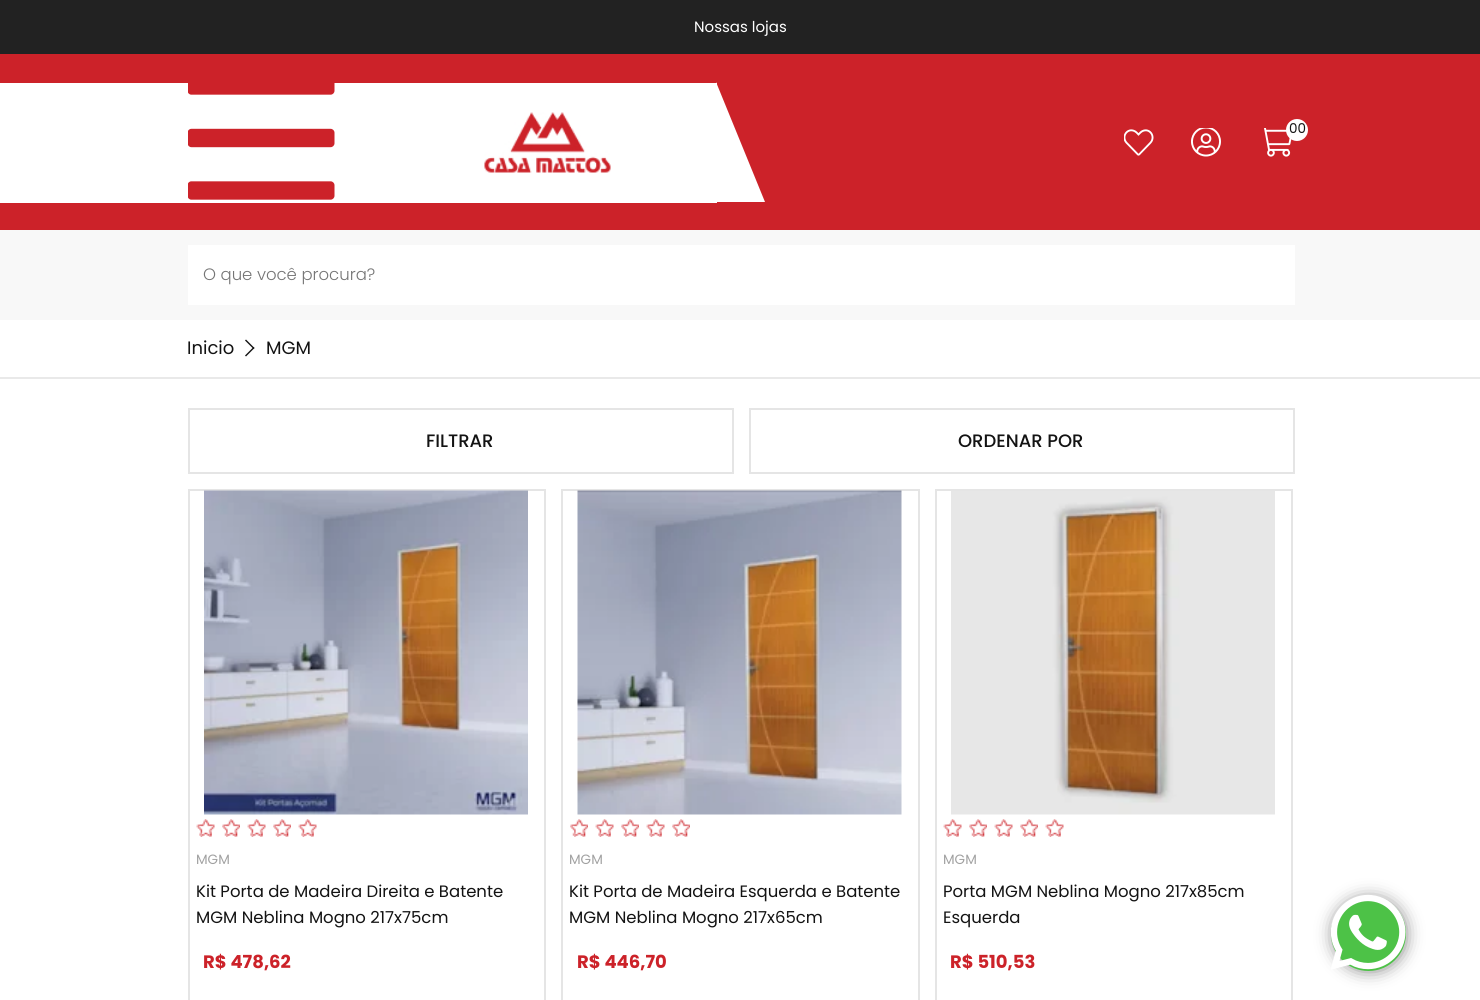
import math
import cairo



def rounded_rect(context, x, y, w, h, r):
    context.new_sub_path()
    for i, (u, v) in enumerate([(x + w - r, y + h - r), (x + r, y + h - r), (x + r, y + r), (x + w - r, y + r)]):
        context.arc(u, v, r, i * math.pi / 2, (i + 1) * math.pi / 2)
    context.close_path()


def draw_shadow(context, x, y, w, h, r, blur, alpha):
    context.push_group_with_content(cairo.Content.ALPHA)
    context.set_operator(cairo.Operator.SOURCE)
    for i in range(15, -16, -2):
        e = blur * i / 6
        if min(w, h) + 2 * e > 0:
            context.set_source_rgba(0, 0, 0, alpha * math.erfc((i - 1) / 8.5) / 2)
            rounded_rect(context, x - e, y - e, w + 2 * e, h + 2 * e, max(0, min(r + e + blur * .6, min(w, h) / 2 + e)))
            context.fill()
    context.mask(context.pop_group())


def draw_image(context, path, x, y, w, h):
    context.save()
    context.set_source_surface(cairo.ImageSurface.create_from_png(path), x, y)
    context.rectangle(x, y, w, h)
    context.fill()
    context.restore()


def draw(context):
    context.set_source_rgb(1, 1, 1)
    context.paint()
    context.set_source_rgb(34 / 255, 34 / 255, 34 / 255)
    context.rectangle(0, 0, 1480, 54)
    context.fill()
    context.set_source_rgb(204 / 255, 34 / 255, 41 / 255)
    context.rectangle(0, 54, 1480, 176)
    context.fill()
    context.set_source_rgb(1, 1, 1)
    context.rectangle(0, 83, 717, 120)
    context.fill()
    draw_image(context, "images/1.png", 484, 112, 127, 61)
    context.new_path()
    context.move_to(765, 202)
    context.line_to(716, 202)
    context.line_to(716, 82)
    context.close_path()
    context.fill()
    draw_image(context, "images/2.png", 188, 83, 147, 117)
    draw_image(context, "images/3.png", 1124, 129, 30, 27)
    draw_image(context, "images/4.png", 1191, 128, 30, 29)
    draw_image(context, "images/5.png", 1264, 128, 28, 29)
    context.arc(1297, 130, 11, 0, 2 * math.pi)
    context.fill()
    context.set_source_rgb(248 / 255, 248 / 255, 248 / 255)
    context.rectangle(0, 230, 1480, 90)
    context.fill()
    context.set_source_rgb(1, 1, 1)
    context.rectangle(188, 245, 1107, 60)
    context.fill()
    context.set_source_rgb(233 / 255, 233 / 255, 233 / 255)
    context.rectangle(0, 377, 1480, 2)
    context.fill()
    context.set_source_rgb(19 / 255, 19 / 255, 19 / 255)
    context.new_path()
    context.move_to(245, 340.5)
    context.line_to(246, 339.5)
    context.line_to(254.5, 348)
    context.line_to(253.5, 349)
    context.close_path()
    context.fill()
    context.new_path()
    context.move_to(245, 355.5)
    context.line_to(253.5, 347)
    context.line_to(254.5, 348)
    context.line_to(246, 356.5)
    context.close_path()
    context.fill()
    context.rectangle(189, 409, 544, 64)
    context.set_source_rgb(229 / 255, 229 / 255, 229 / 255)
    context.stroke()
    context.rectangle(750, 409, 544, 64)
    context.stroke()
    context.rectangle(189, 490, 356, 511)
    context.stroke()
    draw_image(context, "images/6.png", 204, 490, 324, 325)
    draw_image(context, "images/7.png", 196, 819, 19, 18)
    draw_image(context, "images/8.png", 222, 819, 18, 18)
    draw_image(context, "images/9.png", 247, 819, 19, 18)
    draw_image(context, "images/10.png", 273, 819, 18, 18)
    draw_image(context, "images/9.png", 298, 819, 19, 18)
    context.rectangle(562, 490, 357, 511)
    context.stroke()
    draw_image(context, "images/11.png", 577, 490, 325, 325)
    draw_image(context, "images/10.png", 570, 819, 18, 18)
    draw_image(context, "images/9.png", 595, 819, 19, 18)
    draw_image(context, "images/8.png", 621, 819, 18, 18)
    draw_image(context, "images/9.png", 646, 819, 19, 18)
    draw_image(context, "images/10.png", 672, 819, 18, 18)
    context.rectangle(936, 490, 356, 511)
    context.stroke()
    draw_image(context, "images/12.png", 951, 491, 324, 324)
    draw_image(context, "images/7.png", 943, 819, 19, 18)
    draw_image(context, "images/8.png", 969, 819, 18, 18)
    draw_image(context, "images/7.png", 994, 819, 19, 18)
    draw_image(context, "images/13.png", 1020, 819, 18, 18)
    draw_image(context, "images/9.png", 1045, 819, 19, 18)
    context.set_source_rgb(0, 0, 0)
    draw_shadow(context, 1335, 900, 69, 69, 34.5, 9, 0.6)
    context.set_source_rgb(77 / 255, 194 / 255, 71 / 255)
    context.arc(1368.5, 933.5, 37.5, 0, 2 * math.pi)
    context.fill()
    draw_image(context, "images/14.png", 1331, 894, 75, 76)
    context.select_font_face("Poppins")
    context.set_font_size(15)
    context.set_source_rgb(1, 1, 1)
    context.move_to(694, 32)
    context.show_text("Nossas lojas")
    context.set_font_size(13.5)
    context.set_source_rgb(19 / 255, 19 / 255, 19 / 255)
    context.move_to(1289, 133)
    context.show_text("00")
    context.select_font_face("Poppins Light")
    context.set_font_size(16.5)
    context.set_source_rgb(117 / 255, 117 / 255, 117 / 255)
    context.move_to(203, 280)
    context.show_text("O que você procura?")
    context.select_font_face("Poppins")
    context.set_font_size(18)
    context.set_source_rgb(19 / 255, 19 / 255, 19 / 255)
    context.move_to(187, 354)
    context.show_text("Inicio")
    context.move_to(266, 354)
    context.show_text("MGM")
    context.select_font_face("Poppins Medium")
    context.move_to(426, 447)
    context.show_text("FILTRAR")
    context.move_to(958, 447)
    context.show_text("ORDENAR POR")
    context.select_font_face("Poppins")
    context.set_font_size(13.5)
    context.set_source_rgb(161 / 255, 161 / 255, 161 / 255)
    context.move_to(196, 864)
    context.show_text("MGM")
    context.set_font_size(16.5)
    context.set_source_rgb(19 / 255, 19 / 255, 19 / 255)
    context.move_to(196, 897)
    context.show_text("Kit Porta de Madeira Direita e Batente")
    context.move_to(196, 923)
    context.show_text("MGM Neblina Mogno 217x75cm")
    context.select_font_face("Poppins", cairo.FontSlant.NORMAL, cairo.FontWeight.BOLD)
    context.set_font_size(18)
    context.set_source_rgb(204 / 255, 34 / 255, 41 / 255)
    context.move_to(203, 968)
    context.show_text("R$ 478,62")
    context.select_font_face("Poppins")
    context.set_font_size(13.5)
    context.set_source_rgb(161 / 255, 161 / 255, 161 / 255)
    context.move_to(569, 864)
    context.show_text("MGM")
    context.set_font_size(16.5)
    context.set_source_rgb(19 / 255, 19 / 255, 19 / 255)
    context.move_to(569, 897)
    context.show_text("Kit Porta de Madeira Esquerda e Batente")
    context.move_to(569, 923)
    context.show_text("MGM Neblina Mogno 217x65cm")
    context.select_font_face("Poppins", cairo.FontSlant.NORMAL, cairo.FontWeight.BOLD)
    context.set_font_size(18)
    context.set_source_rgb(204 / 255, 34 / 255, 41 / 255)
    context.move_to(577, 968)
    context.show_text("R$ 446,70")
    context.select_font_face("Poppins")
    context.set_font_size(13.5)
    context.set_source_rgb(161 / 255, 161 / 255, 161 / 255)
    context.move_to(943, 864)
    context.show_text("MGM")
    context.set_font_size(16.5)
    context.set_source_rgb(19 / 255, 19 / 255, 19 / 255)
    context.move_to(943, 897)
    context.show_text("Porta MGM Neblina Mogno 217x85cm")
    context.move_to(943, 923)
    context.show_text("Esquerda")
    context.select_font_face("Poppins", cairo.FontSlant.NORMAL, cairo.FontWeight.BOLD)
    context.set_font_size(18)
    context.set_source_rgb(204 / 255, 34 / 255, 41 / 255)
    context.move_to(950, 968)
    context.show_text("R$ 510,53")


surface = cairo.ImageSurface(cairo.Format.RGB24, 1480, 1000)
context = cairo.Context(surface)
options = cairo.FontOptions()
options.set_hint_metrics(cairo.HintMetrics.OFF)
options.set_hint_style(cairo.HintStyle.NONE)
context.set_font_options(options)
context.set_miter_limit(4)
draw(context)
surface.write_to_png("out.png")
